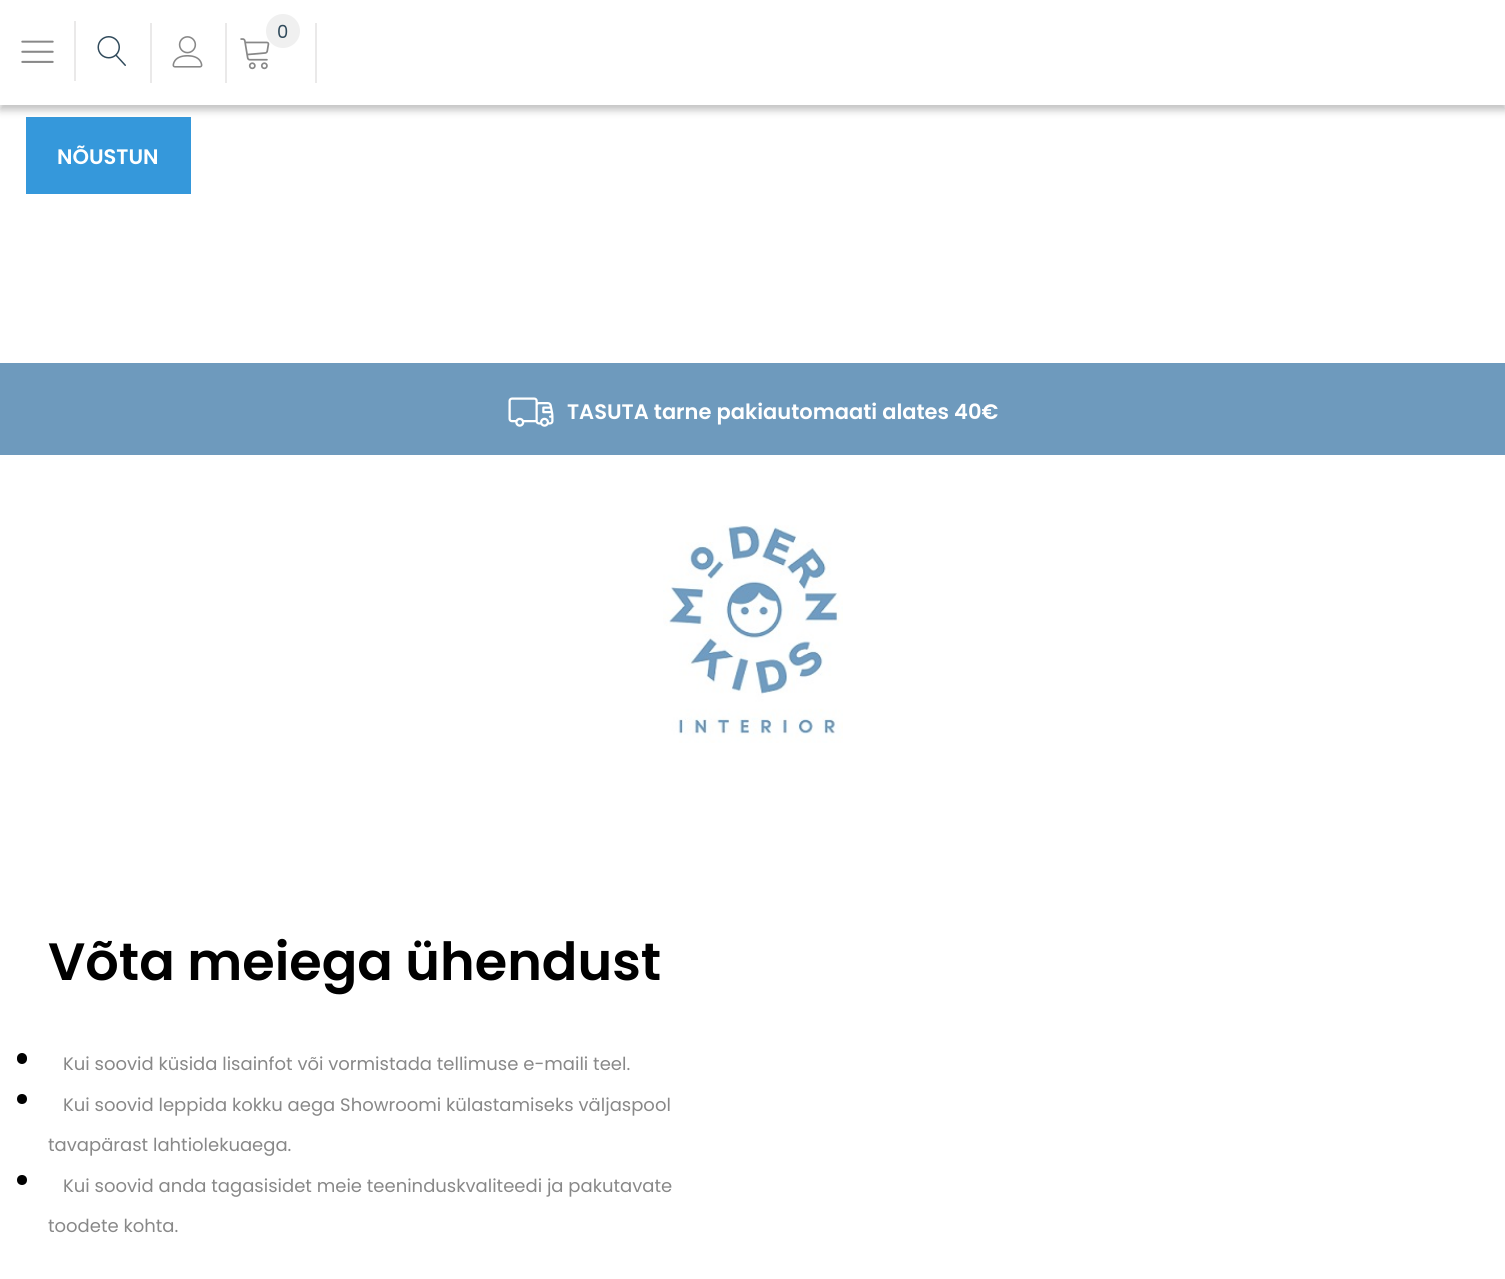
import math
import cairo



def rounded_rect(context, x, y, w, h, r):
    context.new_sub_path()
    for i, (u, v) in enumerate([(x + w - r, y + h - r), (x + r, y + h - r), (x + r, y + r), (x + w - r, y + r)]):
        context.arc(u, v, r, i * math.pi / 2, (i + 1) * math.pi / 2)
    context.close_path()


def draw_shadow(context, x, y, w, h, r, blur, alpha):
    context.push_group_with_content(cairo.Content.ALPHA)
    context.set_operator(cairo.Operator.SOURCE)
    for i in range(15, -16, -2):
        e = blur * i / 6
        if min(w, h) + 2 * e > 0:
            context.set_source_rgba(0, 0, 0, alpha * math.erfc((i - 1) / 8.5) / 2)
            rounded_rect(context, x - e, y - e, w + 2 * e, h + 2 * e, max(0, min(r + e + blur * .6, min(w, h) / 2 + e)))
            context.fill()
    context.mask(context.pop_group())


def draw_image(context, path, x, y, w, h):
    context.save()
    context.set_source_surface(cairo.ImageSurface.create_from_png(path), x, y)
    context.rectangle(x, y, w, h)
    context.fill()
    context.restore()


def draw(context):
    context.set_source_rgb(1, 1, 1)
    context.paint()
    context.set_source_rgb(53 / 255, 152 / 255, 219 / 255)
    context.rectangle(26, 117, 165, 77)
    context.fill()
    context.set_source_rgb(0, 0, 0)
    draw_shadow(context, 0, 5, 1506, 105, 0, 4, 0.25)
    context.set_source_rgb(1, 1, 1)
    context.rectangle(0, 0, 1505, 105)
    context.fill()
    context.set_source_rgb(234 / 255, 233 / 255, 233 / 255)
    context.rectangle(74, 21, 2, 60)
    context.fill()
    draw_image(context, "images/1.png", 21, 40, 33, 23)
    draw_image(context, "images/2.png", 97, 36, 29, 30)
    draw_image(context, "images/3.png", 663, 525, 180, 218)
    context.rectangle(150, 23, 2, 60)
    context.fill()
    draw_image(context, "images/4.png", 172, 36, 31, 32)
    context.rectangle(315, 23, 2, 60)
    context.fill()
    context.rectangle(225, 23, 2, 60)
    context.fill()
    draw_image(context, "images/5.png", 240, 38, 30, 32)
    context.set_source_rgb(240 / 255, 240 / 255, 240 / 255)
    context.arc(283, 31, 17, 0, 2 * math.pi)
    context.fill()
    context.set_source_rgb(110 / 255, 154 / 255, 189 / 255)
    context.rectangle(0, 363, 1505, 92)
    context.fill()
    draw_image(context, "images/6.png", 508, 397, 46, 30)
    context.set_source_rgb(0, 0, 0)
    rounded_rect(context, 17, 1053, 10, 11, 5)
    context.fill()
    context.arc(22, 1099, 5, 0, 2 * math.pi)
    context.fill()
    context.arc(22, 1180, 5, 0, 2 * math.pi)
    context.fill()
    context.select_font_face("Poppins")
    context.set_font_size(18)
    context.set_source_rgb(48 / 255, 74 / 255, 91 / 255)
    context.move_to(277, 38)
    context.show_text("0")
    context.select_font_face("Poppins SemiBold")
    context.set_font_size(21)
    context.set_source_rgb(1, 1, 1)
    context.move_to(567, 419)
    context.show_text("TASUTA tarne pakiautomaati alates 40€")
    context.set_font_size(52.5)
    context.set_source_rgb(0, 0, 0)
    context.move_to(48, 980)
    context.show_text("Võta meiega ühendust")
    context.select_font_face("Poppins")
    context.set_font_size(18)
    context.set_source_rgb(136 / 255, 136 / 255, 136 / 255)
    context.move_to(63, 1070)
    context.show_text("Kui soovid küsida lisainfot või vormistada tellimuse e-maili teel.")
    context.move_to(63, 1111)
    context.show_text("Kui soovid leppida kokku aega Showroomi külastamiseks väljaspool")
    context.move_to(48, 1151)
    context.show_text("tavapärast lahtiolekuaega.")
    context.move_to(63, 1192)
    context.show_text("Kui soovid anda tagasisidet meie teeninduskvaliteedi ja pakutavate")
    context.move_to(48, 1232)
    context.show_text("toodete kohta.")
    context.select_font_face("Poppins SemiBold")
    context.set_font_size(21)
    context.set_source_rgb(1, 1, 1)
    context.move_to(57, 164)
    context.show_text("NÕUSTUN")


surface = cairo.ImageSurface(cairo.Format.RGB24, 1505, 1279)
context = cairo.Context(surface)
options = cairo.FontOptions()
options.set_hint_metrics(cairo.HintMetrics.OFF)
options.set_hint_style(cairo.HintStyle.NONE)
context.set_font_options(options)
context.set_miter_limit(4)
draw(context)
surface.write_to_png("out.png")
